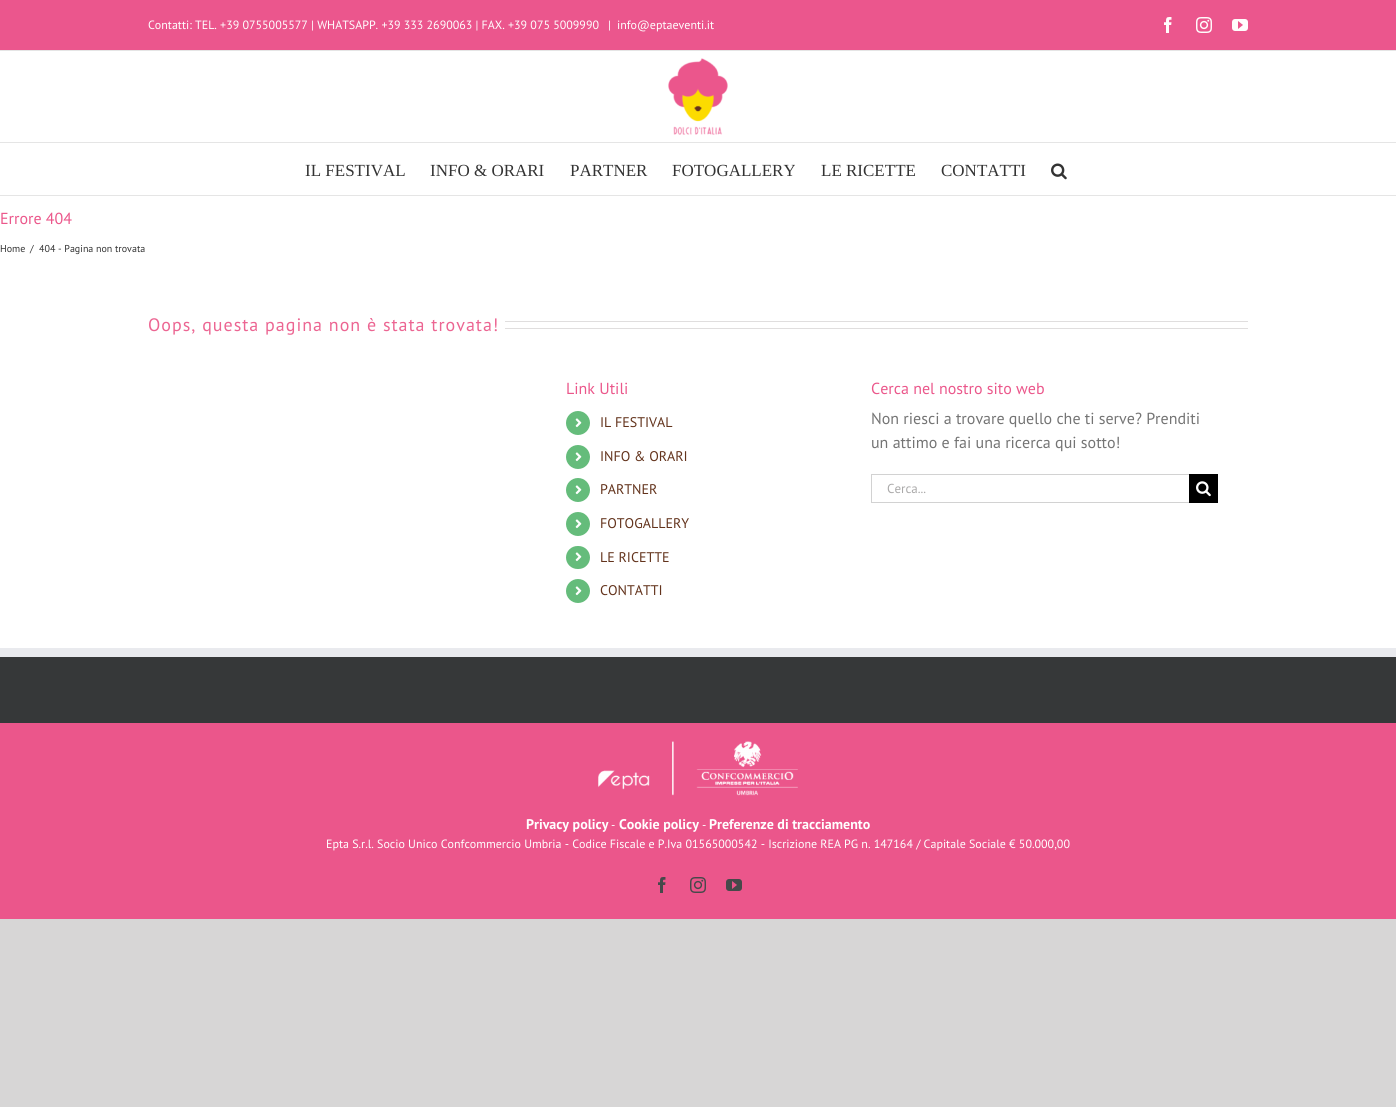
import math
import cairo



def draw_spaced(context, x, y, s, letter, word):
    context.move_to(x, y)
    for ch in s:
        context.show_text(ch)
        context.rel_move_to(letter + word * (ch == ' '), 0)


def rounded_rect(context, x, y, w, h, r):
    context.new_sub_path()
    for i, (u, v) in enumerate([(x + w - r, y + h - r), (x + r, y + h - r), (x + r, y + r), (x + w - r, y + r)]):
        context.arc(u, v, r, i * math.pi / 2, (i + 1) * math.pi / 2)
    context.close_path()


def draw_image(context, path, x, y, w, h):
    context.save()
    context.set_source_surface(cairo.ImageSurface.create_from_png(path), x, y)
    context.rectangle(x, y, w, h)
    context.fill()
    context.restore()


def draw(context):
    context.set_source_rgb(215 / 255, 214 / 255, 214 / 255)
    context.paint()
    context.set_source_rgb(1, 1, 1)
    context.rectangle(0, 51, 1396, 597)
    context.fill()
    context.set_source_rgb(235 / 255, 86 / 255, 141 / 255)
    context.rectangle(0, 0, 1396, 50)
    context.fill()
    context.set_source_rgb(229 / 255, 229 / 255, 229 / 255)
    context.rectangle(0, 50, 1396, 1)
    context.fill()
    draw_image(context, "images/1.png", 1164, 17, 8, 16)
    draw_image(context, "images/2.png", 1196, 17, 16, 16)
    draw_image(context, "images/3.png", 1232, 19, 16, 12)
    context.rectangle(0, 142, 1396, 1)
    context.fill()
    draw_image(context, "images/4.png", 668, 58, 60, 77)
    context.rectangle(0, 195, 1396, 1)
    context.fill()
    draw_image(context, "images/5.png", 1051, 163, 16, 17)
    context.set_source_rgb(224 / 255, 222 / 255, 222 / 255)
    context.rectangle(505, 321, 743, 1)
    context.fill()
    context.rectangle(505, 328, 743, 1)
    context.fill()
    context.set_source_rgb(101 / 255, 188 / 255, 123 / 255)
    context.arc(578, 423, 12, 0, 2 * math.pi)
    context.fill()
    draw_image(context, "images/6.png", 575, 418, 7, 10)
    context.arc(578, 457, 12, 0, 2 * math.pi)
    context.fill()
    draw_image(context, "images/6.png", 575, 452, 7, 10)
    context.arc(578, 490, 12, 0, 2 * math.pi)
    context.fill()
    draw_image(context, "images/6.png", 575, 485, 7, 10)
    context.arc(578, 524, 12, 0, 2 * math.pi)
    context.fill()
    draw_image(context, "images/6.png", 575, 519, 7, 10)
    rounded_rect(context, 566, 546, 24, 23, 11.5)
    context.fill()
    draw_image(context, "images/6.png", 575, 552, 7, 10)
    context.arc(578, 591, 12, 0, 2 * math.pi)
    context.fill()
    draw_image(context, "images/6.png", 575, 586, 7, 10)
    context.set_source_rgb(210 / 255, 210 / 255, 210 / 255)
    context.rectangle(871, 474, 318, 1)
    context.fill()
    context.rectangle(871, 502, 318, 1)
    context.fill()
    context.rectangle(871, 474, 1, 29)
    context.fill()
    context.set_source_rgb(0, 0, 0)
    context.rectangle(1189, 474, 29, 29)
    context.fill()
    draw_image(context, "images/7.png", 1196, 481, 15, 16)
    context.set_source_rgb(54 / 255, 56 / 255, 57 / 255)
    context.rectangle(0, 657, 1396, 66)
    context.fill()
    context.set_source_rgb(233 / 255, 234 / 255, 238 / 255)
    context.rectangle(0, 648, 1396, 9)
    context.fill()
    context.set_source_rgb(235 / 255, 86 / 255, 139 / 255)
    context.rectangle(0, 723, 1396, 196)
    context.fill()
    draw_image(context, "images/8.png", 598, 741, 200, 55)
    draw_image(context, "images/9.png", 658, 877, 8, 16)
    draw_image(context, "images/10.png", 690, 877, 16, 16)
    draw_image(context, "images/11.png", 726, 879, 16, 12)
    context.select_font_face("PT Sans")
    context.set_font_size(12)
    context.set_source_rgb(1, 1, 1)
    context.move_to(148, 29)
    context.show_text("Contatti: TEL. +39 0755005577 | WHATSAPP. +39 333 2690063 | FAX. +39 075 5009990")
    context.move_to(608, 29)
    context.show_text("|")
    context.move_to(617, 29)
    context.show_text("info@eptaeventi.it")
    context.select_font_face("Liberation Serif")
    context.set_font_size(17)
    context.set_source_rgb(51 / 255, 51 / 255, 51 / 255)
    context.move_to(305, 176)
    context.show_text("IL FESTIVAL")
    context.move_to(430, 176)
    context.show_text("INFO & ORARI")
    context.move_to(570, 176)
    context.show_text("PARTNER")
    context.move_to(672, 176)
    context.show_text("FOTOGALLERY")
    context.move_to(821, 176)
    context.show_text("LE RICETTE")
    context.move_to(941, 176)
    context.show_text("CONTATTI")
    context.select_font_face("PT Sans")
    context.set_font_size(16)
    context.set_source_rgb(235 / 255, 87 / 255, 139 / 255)
    context.move_to(0, 224)
    context.show_text("Errore 404")
    context.set_font_size(10)
    context.set_source_rgb(51 / 255, 51 / 255, 51 / 255)
    context.move_to(0, 252)
    context.show_text("Home")
    context.move_to(30, 252)
    context.show_text("/")
    context.move_to(39, 252)
    context.show_text("404 - Pagina non trovata")
    context.set_font_size(18)
    context.set_source_rgb(236 / 255, 101 / 255, 146 / 255)
    draw_spaced(context, 148, 331, "Oops, questa pagina non è stata trovata!", 1, 0)
    context.set_font_size(16)
    context.set_source_rgb(235 / 255, 87 / 255, 139 / 255)
    context.move_to(566, 394)
    context.show_text("Link Utili")
    context.set_font_size(14)
    context.set_source_rgb(99 / 255, 51 / 255, 28 / 255)
    context.move_to(600, 427)
    context.show_text("IL FESTIVAL")
    context.move_to(600, 461)
    context.show_text("INFO & ORARI")
    context.move_to(600, 494)
    context.show_text("PARTNER")
    context.move_to(600, 528)
    context.show_text("FOTOGALLERY")
    context.move_to(600, 562)
    context.show_text("LE RICETTE")
    context.move_to(600, 595)
    context.show_text("CONTATTI")
    context.set_font_size(16)
    context.set_source_rgb(235 / 255, 87 / 255, 139 / 255)
    context.move_to(871, 394)
    context.show_text("Cerca nel nostro sito web")
    context.set_source_rgb(116 / 255, 116 / 255, 116 / 255)
    context.move_to(871, 424)
    context.show_text("Non riesci a trovare quello che ti serve? Prenditi")
    context.move_to(871, 448)
    context.show_text("un attimo e fai una ricerca qui sotto!")
    context.set_font_size(13)
    context.set_source_rgb(170 / 255, 169 / 255, 169 / 255)
    context.move_to(887, 493)
    context.show_text("Cerca...")
    context.select_font_face("PT Sans", cairo.FontSlant.NORMAL, cairo.FontWeight.BOLD)
    context.set_font_size(14)
    context.set_source_rgb(1, 1, 1)
    context.move_to(526, 829)
    context.show_text("Privacy policy")
    context.select_font_face("PT Sans")
    context.set_font_size(12)
    context.move_to(611, 829)
    context.show_text("-")
    context.select_font_face("PT Sans", cairo.FontSlant.NORMAL, cairo.FontWeight.BOLD)
    context.set_font_size(14)
    context.move_to(619, 829)
    context.show_text("Cookie policy")
    context.select_font_face("PT Sans")
    context.set_font_size(12)
    context.move_to(702, 829)
    context.show_text("-")
    context.select_font_face("PT Sans", cairo.FontSlant.NORMAL, cairo.FontWeight.BOLD)
    context.set_font_size(14)
    context.move_to(709, 829)
    context.show_text("Preferenze di tracciamento")
    context.select_font_face("PT Sans")
    context.set_font_size(12)
    context.move_to(326, 848)
    context.show_text("Epta S.r.l. Socio Unico Confcommercio Umbria - Codice Fiscale e P.Iva 01565000542 - Iscrizione REA PG n. 147164 / Capitale Sociale € 50.000,00")


surface = cairo.ImageSurface(cairo.Format.RGB24, 1396, 1107)
context = cairo.Context(surface)
options = cairo.FontOptions()
options.set_hint_metrics(cairo.HintMetrics.OFF)
options.set_hint_style(cairo.HintStyle.NONE)
context.set_font_options(options)
context.set_miter_limit(4)
draw(context)
surface.write_to_png("out.png")
